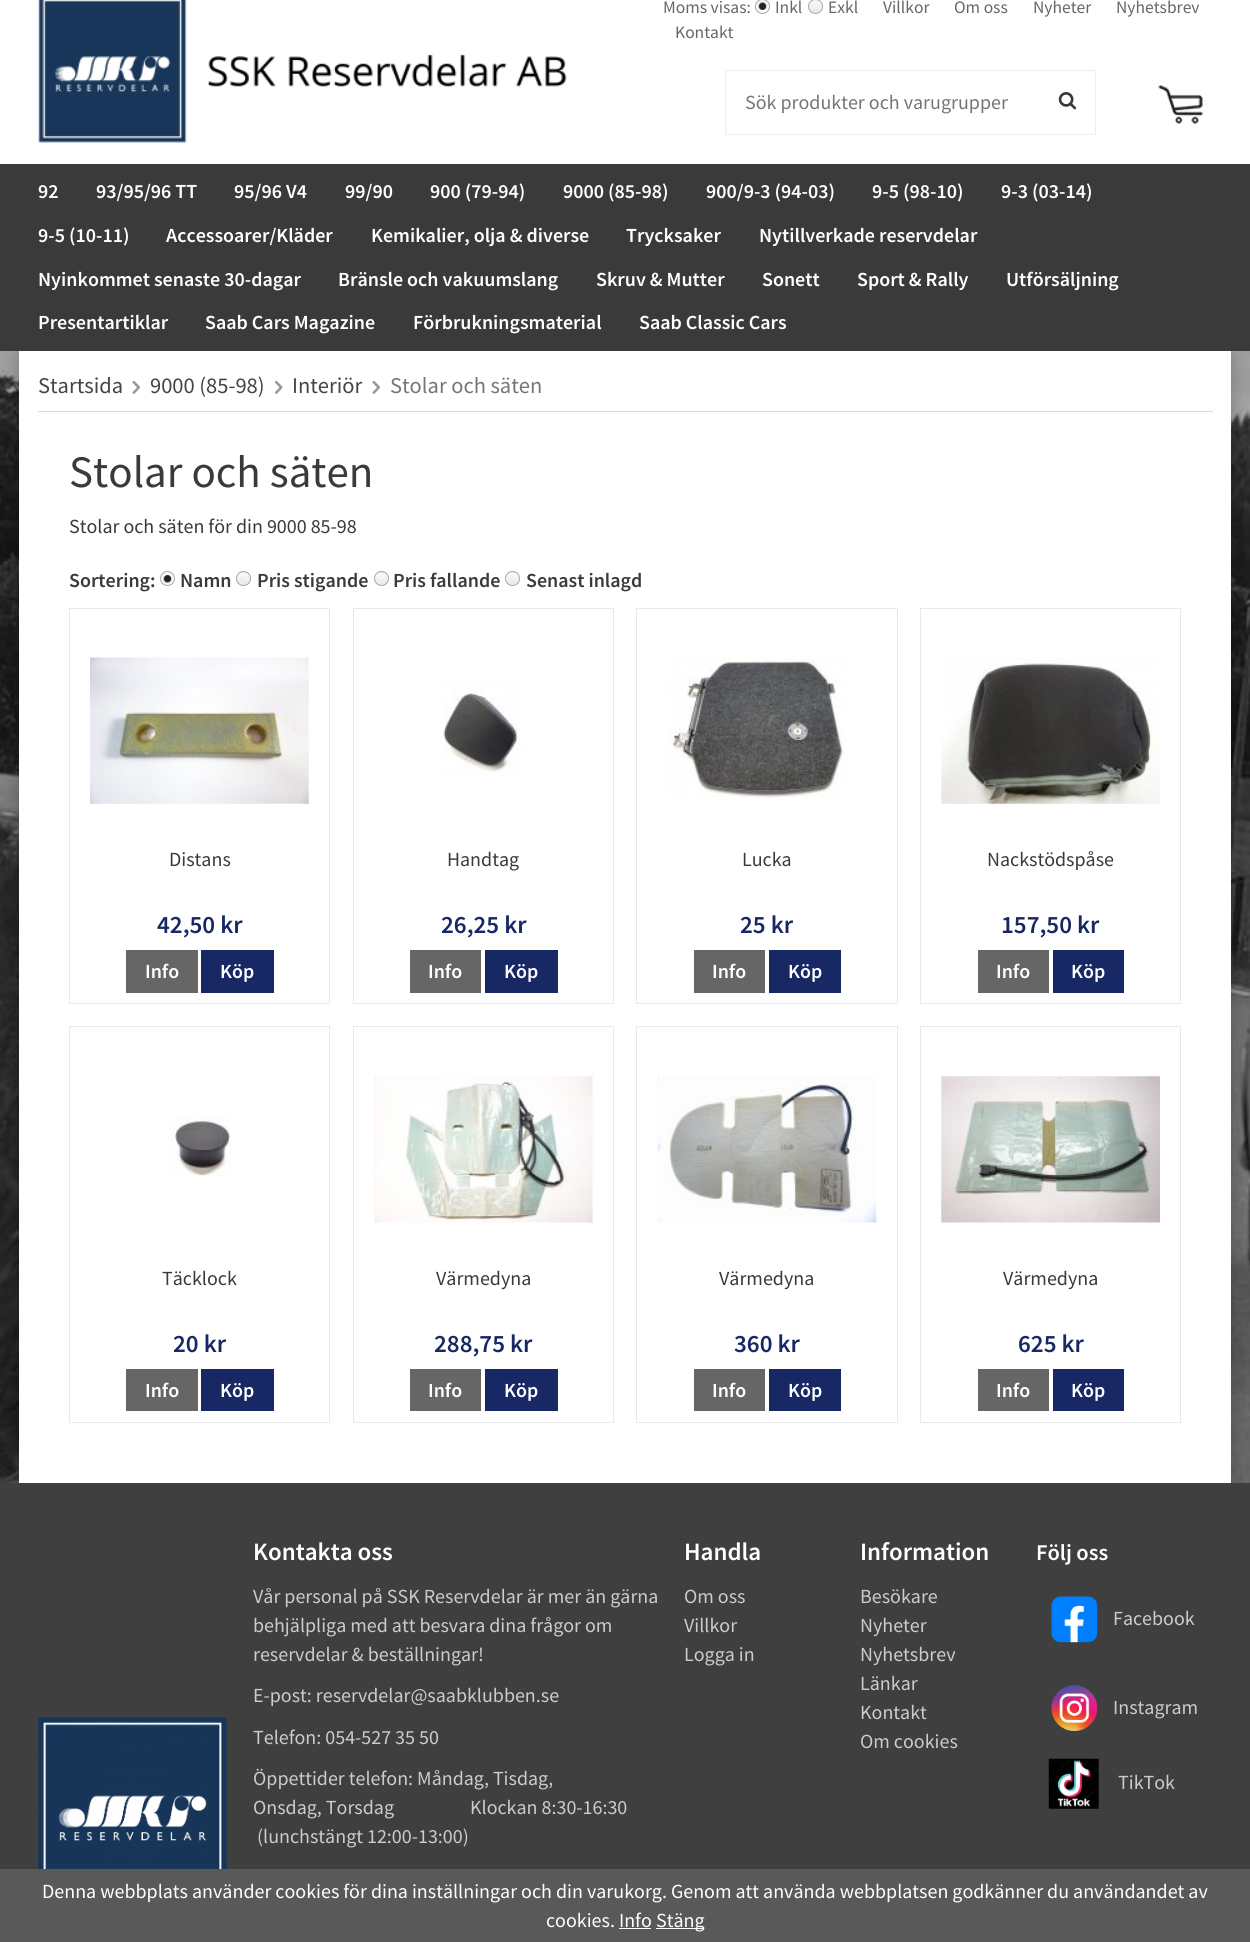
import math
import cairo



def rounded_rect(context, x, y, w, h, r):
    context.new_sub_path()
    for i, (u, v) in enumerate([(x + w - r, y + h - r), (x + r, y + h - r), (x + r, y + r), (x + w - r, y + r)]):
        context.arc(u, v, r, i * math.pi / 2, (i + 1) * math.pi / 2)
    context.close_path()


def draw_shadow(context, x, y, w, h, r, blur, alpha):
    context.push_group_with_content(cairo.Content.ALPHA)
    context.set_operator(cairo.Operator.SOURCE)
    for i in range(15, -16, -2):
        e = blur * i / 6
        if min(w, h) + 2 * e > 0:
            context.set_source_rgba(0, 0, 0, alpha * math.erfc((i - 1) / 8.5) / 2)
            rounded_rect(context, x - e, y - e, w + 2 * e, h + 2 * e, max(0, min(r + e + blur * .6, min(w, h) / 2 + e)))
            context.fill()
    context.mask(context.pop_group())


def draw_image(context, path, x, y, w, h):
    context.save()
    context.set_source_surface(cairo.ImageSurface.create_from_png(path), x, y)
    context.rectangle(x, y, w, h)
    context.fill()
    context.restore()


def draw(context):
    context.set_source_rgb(1, 1, 1)
    context.paint()
    draw_image(context, "images/1.png", 0, 351, 1250, 1132)
    draw_image(context, "images/2.png", 38, 0, 529, 143)
    context.set_source_rgb(249 / 255, 249 / 255, 249 / 255)
    context.arc(762.5, 6.5, 7.5, 0, 2 * math.pi)
    context.fill()
    draw_image(context, "images/3.png", 758, 2, 9, 8)
    context.arc(762.5, 6.5, 7, 0, 2 * math.pi)
    context.set_source_rgb(169 / 255, 169 / 255, 169 / 255)
    context.set_line_width(1)
    context.stroke()
    context.save()
    rounded_rect(context, 808, -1, 15, 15, 7.5)
    context.clip()
    gradient = cairo.LinearGradient(815, 0, 815, 13)
    gradient.add_color_stop_rgba(0, 249 / 255, 249 / 255, 249 / 255, 1)
    gradient.add_color_stop_rgba(1, 233 / 255, 233 / 255, 233 / 255, 1)
    context.set_source(gradient)
    context.rectangle(808, 0, 15, 13)
    context.fill()
    context.restore()
    context.arc(815.5, 6.5, 7, 0, 2 * math.pi)
    context.stroke()
    context.rectangle(725.5, 70.5, 370, 64)
    context.set_source_rgb(238 / 255, 238 / 255, 238 / 255)
    context.stroke()
    draw_image(context, "images/4.png", 1058, 92, 19, 18)
    draw_image(context, "images/5.png", 1158, 84, 45, 40)
    context.set_source_rgb(0, 0, 0)
    draw_shadow(context, 19, 358, 1212, 1131, 0, 9.5, 0.25)
    context.set_source_rgb(58 / 255, 58 / 255, 58 / 255)
    context.rectangle(0, 164, 1250, 187)
    context.fill()
    context.set_source_rgb(1, 1, 1)
    context.rectangle(19, 351, 1212, 1132)
    context.fill()
    context.set_source_rgb(220 / 255, 220 / 255, 220 / 255)
    context.rectangle(38, 411, 1175, 1)
    context.fill()
    draw_image(context, "images/6.png", 132, 380, 8, 14)
    draw_image(context, "images/7.png", 275, 380, 8, 14)
    draw_image(context, "images/6.png", 372, 380, 8, 14)
    context.set_source_rgb(249 / 255, 249 / 255, 249 / 255)
    context.arc(167.5, 578.5, 7.5, 0, 2 * math.pi)
    context.fill()
    draw_image(context, "images/8.png", 163, 575, 9, 8)
    context.arc(167.5, 578.5, 7, 0, 2 * math.pi)
    context.set_source_rgb(169 / 255, 169 / 255, 169 / 255)
    context.stroke()
    context.save()
    rounded_rect(context, 236, 571, 15, 15, 7.5)
    context.clip()
    gradient = cairo.LinearGradient(244, 560, 244, 573)
    gradient.add_color_stop_rgba(0, 249 / 255, 249 / 255, 249 / 255, 1)
    gradient.add_color_stop_rgba(1, 233 / 255, 233 / 255, 233 / 255, 1)
    context.set_source(gradient)
    context.rectangle(236, 571, 15, 2)
    context.fill()
    gradient = cairo.LinearGradient(244, 573, 244, 585)
    gradient.add_color_stop_rgba(0, 249 / 255, 249 / 255, 249 / 255, 1)
    gradient.add_color_stop_rgba(1, 233 / 255, 233 / 255, 233 / 255, 1)
    context.set_source(gradient)
    context.rectangle(236, 573, 15, 12)
    context.fill()
    context.restore()
    context.arc(243.5, 578.5, 7, 0, 2 * math.pi)
    context.stroke()
    context.save()
    rounded_rect(context, 374, 571, 15, 15, 7.5)
    context.clip()
    gradient = cairo.LinearGradient(381, 560, 381, 573)
    gradient.add_color_stop_rgba(0, 249 / 255, 249 / 255, 249 / 255, 1)
    gradient.add_color_stop_rgba(1, 233 / 255, 233 / 255, 233 / 255, 1)
    context.set_source(gradient)
    context.rectangle(374, 571, 15, 2)
    context.fill()
    gradient = cairo.LinearGradient(381, 573, 381, 585)
    gradient.add_color_stop_rgba(0, 249 / 255, 249 / 255, 249 / 255, 1)
    gradient.add_color_stop_rgba(1, 233 / 255, 233 / 255, 233 / 255, 1)
    context.set_source(gradient)
    context.rectangle(374, 573, 15, 12)
    context.fill()
    context.restore()
    context.arc(381.5, 578.5, 7, 0, 2 * math.pi)
    context.stroke()
    context.save()
    rounded_rect(context, 505, 571, 15, 15, 7.5)
    context.clip()
    gradient = cairo.LinearGradient(513, 560, 513, 573)
    gradient.add_color_stop_rgba(0, 249 / 255, 249 / 255, 249 / 255, 1)
    gradient.add_color_stop_rgba(1, 233 / 255, 233 / 255, 233 / 255, 1)
    context.set_source(gradient)
    context.rectangle(505, 571, 15, 2)
    context.fill()
    gradient = cairo.LinearGradient(513, 573, 513, 585)
    gradient.add_color_stop_rgba(0, 249 / 255, 249 / 255, 249 / 255, 1)
    gradient.add_color_stop_rgba(1, 233 / 255, 233 / 255, 233 / 255, 1)
    context.set_source(gradient)
    context.rectangle(505, 573, 15, 12)
    context.fill()
    context.restore()
    context.arc(512.5, 578.5, 7, 0, 2 * math.pi)
    context.stroke()
    context.rectangle(69.5, 608.5, 260, 395)
    context.set_source_rgb(233 / 255, 233 / 255, 233 / 255)
    context.stroke()
    draw_image(context, "images/9.png", 90, 657, 219, 147)
    context.set_source_rgb(102 / 255, 102 / 255, 102 / 255)
    context.rectangle(126, 950, 72, 43)
    context.fill()
    context.set_source_rgb(23 / 255, 40 / 255, 101 / 255)
    context.rectangle(201, 950, 73, 43)
    context.fill()
    context.rectangle(353.5, 608.5, 260, 395)
    context.set_source_rgb(233 / 255, 233 / 255, 233 / 255)
    context.stroke()
    draw_image(context, "images/10.png", 443, 678, 79, 99)
    context.set_source_rgb(102 / 255, 102 / 255, 102 / 255)
    context.rectangle(410, 950, 71, 43)
    context.fill()
    context.set_source_rgb(23 / 255, 40 / 255, 101 / 255)
    context.rectangle(485, 950, 73, 43)
    context.fill()
    context.rectangle(636.5, 608.5, 261, 395)
    context.set_source_rgb(233 / 255, 233 / 255, 233 / 255)
    context.stroke()
    draw_image(context, "images/11.png", 668, 658, 179, 140)
    context.set_source_rgb(102 / 255, 102 / 255, 102 / 255)
    context.rectangle(694, 950, 71, 43)
    context.fill()
    context.set_source_rgb(23 / 255, 40 / 255, 101 / 255)
    context.rectangle(769, 950, 72, 43)
    context.fill()
    context.rectangle(920.5, 608.5, 260, 395)
    context.set_source_rgb(233 / 255, 233 / 255, 233 / 255)
    context.stroke()
    draw_image(context, "images/12.png", 941, 657, 219, 147)
    context.set_source_rgb(102 / 255, 102 / 255, 102 / 255)
    context.rectangle(978, 950, 71, 43)
    context.fill()
    context.set_source_rgb(23 / 255, 40 / 255, 101 / 255)
    context.rectangle(1053, 950, 71, 43)
    context.fill()
    context.rectangle(69.5, 1026.5, 260, 396)
    context.set_source_rgb(233 / 255, 233 / 255, 233 / 255)
    context.stroke()
    draw_image(context, "images/13.png", 170, 1116, 61, 61)
    context.set_source_rgb(102 / 255, 102 / 255, 102 / 255)
    context.rectangle(126, 1369, 72, 42)
    context.fill()
    context.set_source_rgb(23 / 255, 40 / 255, 101 / 255)
    context.rectangle(201, 1369, 73, 42)
    context.fill()
    context.rectangle(353.5, 1026.5, 260, 396)
    context.set_source_rgb(233 / 255, 233 / 255, 233 / 255)
    context.stroke()
    draw_image(context, "images/14.png", 374, 1076, 219, 147)
    context.set_source_rgb(102 / 255, 102 / 255, 102 / 255)
    context.rectangle(410, 1369, 71, 42)
    context.fill()
    context.set_source_rgb(23 / 255, 40 / 255, 101 / 255)
    context.rectangle(485, 1369, 73, 42)
    context.fill()
    context.rectangle(636.5, 1026.5, 261, 396)
    context.set_source_rgb(233 / 255, 233 / 255, 233 / 255)
    context.stroke()
    draw_image(context, "images/15.png", 657, 1076, 220, 147)
    context.set_source_rgb(102 / 255, 102 / 255, 102 / 255)
    context.rectangle(694, 1369, 71, 42)
    context.fill()
    context.set_source_rgb(23 / 255, 40 / 255, 101 / 255)
    context.rectangle(769, 1369, 72, 42)
    context.fill()
    context.rectangle(920.5, 1026.5, 260, 396)
    context.set_source_rgb(233 / 255, 233 / 255, 233 / 255)
    context.stroke()
    draw_image(context, "images/16.png", 941, 1076, 219, 147)
    context.set_source_rgb(102 / 255, 102 / 255, 102 / 255)
    context.rectangle(978, 1369, 71, 42)
    context.fill()
    context.set_source_rgb(23 / 255, 40 / 255, 101 / 255)
    context.rectangle(1053, 1369, 71, 42)
    context.fill()
    context.set_source_rgb(63 / 255, 63 / 255, 63 / 255)
    context.rectangle(0, 1483, 1250, 386)
    context.fill()
    draw_image(context, "images/17.png", 38, 1717, 189, 152)
    draw_image(context, "images/18.png", 1051, 1596, 47, 47)
    draw_image(context, "images/19.png", 1051, 1685, 47, 46)
    draw_image(context, "images/20.png", 1048, 1758, 51, 51)
    context.set_source_rgb(89 / 255, 89 / 255, 89 / 255)
    context.rectangle(0, 1869, 1250, 73)
    context.fill()
    context.set_source_rgb(1, 1, 1)
    context.rectangle(656, 1928, 48, 1)
    context.fill()
    context.rectangle(619, 1928, 32, 1)
    context.fill()
    context.select_font_face("Source Sans Pro")
    context.set_font_size(17.5)
    context.set_source_rgb(102 / 255, 102 / 255, 102 / 255)
    context.move_to(663, 13)
    context.show_text("Moms visas:")
    context.move_to(775, 13)
    context.show_text("Inkl")
    context.move_to(828, 13)
    context.show_text("Exkl")
    context.move_to(883, 13)
    context.show_text("Villkor")
    context.move_to(954, 13)
    context.show_text("Om oss")
    context.move_to(1033, 13)
    context.show_text("Nyheter")
    context.move_to(1116, 13)
    context.show_text("Nyhetsbrev")
    context.move_to(675, 38)
    context.show_text("Kontakt")
    context.set_font_size(20)
    context.set_source_rgb(117 / 255, 117 / 255, 117 / 255)
    context.move_to(745, 109)
    context.show_text("Sök produkter och varugrupper")
    context.select_font_face("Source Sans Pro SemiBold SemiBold")
    context.set_source_rgb(1, 1, 1)
    context.move_to(38, 198)
    context.show_text("92")
    context.move_to(96, 198)
    context.show_text("93/95/96 TT")
    context.move_to(234, 198)
    context.show_text("95/96 V4")
    context.move_to(345, 198)
    context.show_text("99/90")
    context.move_to(430, 198)
    context.show_text("900 (79-94)")
    context.move_to(563, 198)
    context.show_text("9000 (85-98)")
    context.move_to(706, 198)
    context.show_text("900/9-3 (94-03)")
    context.move_to(872, 198)
    context.show_text("9-5 (98-10)")
    context.move_to(1001, 198)
    context.show_text("9-3 (03-14)")
    context.move_to(38, 242)
    context.show_text("9-5 (10-11)")
    context.move_to(166, 242)
    context.show_text("Accessoarer/Kläder")
    context.move_to(371, 242)
    context.show_text("Kemikalier, olja & diverse")
    context.move_to(626, 242)
    context.show_text("Trycksaker")
    context.move_to(759, 242)
    context.show_text("Nytillverkade reservdelar")
    context.move_to(38, 286)
    context.show_text("Nyinkommet senaste 30-dagar")
    context.move_to(338, 286)
    context.show_text("Bränsle och vakuumslang")
    context.move_to(596, 286)
    context.show_text("Skruv & Mutter")
    context.move_to(762, 286)
    context.show_text("Sonett")
    context.move_to(857, 286)
    context.show_text("Sport & Rally")
    context.move_to(1006, 286)
    context.show_text("Utförsäljning")
    context.move_to(38, 329)
    context.show_text("Presentartiklar")
    context.move_to(205, 329)
    context.show_text("Saab Cars Magazine")
    context.move_to(413, 329)
    context.show_text("Förbrukningsmaterial")
    context.move_to(639, 329)
    context.show_text("Saab Classic Cars")
    context.select_font_face("Source Sans Pro")
    context.set_font_size(22.5)
    context.set_source_rgb(68 / 255, 68 / 255, 68 / 255)
    context.move_to(38, 393)
    context.show_text("Startsida")
    context.move_to(150, 393)
    context.show_text("9000 (85-98)")
    context.move_to(292, 393)
    context.show_text("Interiör")
    context.set_source_rgb(117 / 255, 117 / 255, 117 / 255)
    context.move_to(390, 393)
    context.show_text("Stolar och säten")
    context.set_font_size(45)
    context.set_source_rgb(58 / 255, 58 / 255, 58 / 255)
    context.move_to(69, 487)
    context.show_text("Stolar och säten")
    context.set_font_size(20)
    context.move_to(69, 533)
    context.show_text("Stolar och säten för din 9000 85-98")
    context.select_font_face("Source Sans Pro SemiBold SemiBold")
    context.move_to(69, 587)
    context.show_text("Sortering:")
    context.move_to(180, 587)
    context.show_text("Namn")
    context.move_to(257, 587)
    context.show_text("Pris stigande")
    context.move_to(393, 587)
    context.show_text("Pris fallande")
    context.move_to(526, 587)
    context.show_text("Senast inlagd")
    context.select_font_face("Source Sans Pro")
    context.move_to(169, 866)
    context.show_text("Distans")
    context.select_font_face("Source Sans Pro SemiBold SemiBold")
    context.set_font_size(25)
    context.set_source_rgb(23 / 255, 40 / 255, 101 / 255)
    context.move_to(157, 933)
    context.show_text("42,50 kr")
    context.set_font_size(20)
    context.set_source_rgb(1, 1, 1)
    context.move_to(145, 978)
    context.show_text("Info")
    context.move_to(220, 978)
    context.show_text("Köp")
    context.select_font_face("Source Sans Pro")
    context.set_source_rgb(58 / 255, 58 / 255, 58 / 255)
    context.move_to(447, 866)
    context.show_text("Handtag")
    context.select_font_face("Source Sans Pro SemiBold SemiBold")
    context.set_font_size(25)
    context.set_source_rgb(23 / 255, 40 / 255, 101 / 255)
    context.move_to(441, 933)
    context.show_text("26,25 kr")
    context.set_font_size(20)
    context.set_source_rgb(1, 1, 1)
    context.move_to(428, 978)
    context.show_text("Info")
    context.move_to(504, 978)
    context.show_text("Köp")
    context.select_font_face("Source Sans Pro")
    context.set_source_rgb(58 / 255, 58 / 255, 58 / 255)
    context.move_to(742, 866)
    context.show_text("Lucka")
    context.select_font_face("Source Sans Pro SemiBold SemiBold")
    context.set_font_size(25)
    context.set_source_rgb(23 / 255, 40 / 255, 101 / 255)
    context.move_to(740, 933)
    context.show_text("25 kr")
    context.set_font_size(20)
    context.set_source_rgb(1, 1, 1)
    context.move_to(712, 978)
    context.show_text("Info")
    context.move_to(788, 978)
    context.show_text("Köp")
    context.select_font_face("Source Sans Pro")
    context.set_source_rgb(58 / 255, 58 / 255, 58 / 255)
    context.move_to(987, 866)
    context.show_text("Nackstödspåse")
    context.select_font_face("Source Sans Pro SemiBold SemiBold")
    context.set_font_size(25)
    context.set_source_rgb(23 / 255, 40 / 255, 101 / 255)
    context.move_to(1001, 933)
    context.show_text("157,50 kr")
    context.set_font_size(20)
    context.set_source_rgb(1, 1, 1)
    context.move_to(996, 978)
    context.show_text("Info")
    context.move_to(1071, 978)
    context.show_text("Köp")
    context.select_font_face("Source Sans Pro")
    context.set_source_rgb(58 / 255, 58 / 255, 58 / 255)
    context.move_to(162, 1285)
    context.show_text("Täcklock")
    context.select_font_face("Source Sans Pro SemiBold SemiBold")
    context.set_font_size(25)
    context.set_source_rgb(23 / 255, 40 / 255, 101 / 255)
    context.move_to(173, 1352)
    context.show_text("20 kr")
    context.set_font_size(20)
    context.set_source_rgb(1, 1, 1)
    context.move_to(145, 1397)
    context.show_text("Info")
    context.move_to(220, 1397)
    context.show_text("Köp")
    context.select_font_face("Source Sans Pro")
    context.set_source_rgb(58 / 255, 58 / 255, 58 / 255)
    context.move_to(436, 1285)
    context.show_text("Värmedyna")
    context.select_font_face("Source Sans Pro SemiBold SemiBold")
    context.set_font_size(25)
    context.set_source_rgb(23 / 255, 40 / 255, 101 / 255)
    context.move_to(434, 1352)
    context.show_text("288,75 kr")
    context.set_font_size(20)
    context.set_source_rgb(1, 1, 1)
    context.move_to(428, 1397)
    context.show_text("Info")
    context.move_to(504, 1397)
    context.show_text("Köp")
    context.select_font_face("Source Sans Pro")
    context.set_source_rgb(58 / 255, 58 / 255, 58 / 255)
    context.move_to(719, 1285)
    context.show_text("Värmedyna")
    context.select_font_face("Source Sans Pro SemiBold SemiBold")
    context.set_font_size(25)
    context.set_source_rgb(23 / 255, 40 / 255, 101 / 255)
    context.move_to(734, 1352)
    context.show_text("360 kr")
    context.set_font_size(20)
    context.set_source_rgb(1, 1, 1)
    context.move_to(712, 1397)
    context.show_text("Info")
    context.move_to(788, 1397)
    context.show_text("Köp")
    context.select_font_face("Source Sans Pro")
    context.set_source_rgb(58 / 255, 58 / 255, 58 / 255)
    context.move_to(1003, 1285)
    context.show_text("Värmedyna")
    context.select_font_face("Source Sans Pro SemiBold SemiBold")
    context.set_font_size(25)
    context.set_source_rgb(23 / 255, 40 / 255, 101 / 255)
    context.move_to(1018, 1352)
    context.show_text("625 kr")
    context.set_font_size(20)
    context.set_source_rgb(1, 1, 1)
    context.move_to(996, 1397)
    context.show_text("Info")
    context.move_to(1071, 1397)
    context.show_text("Köp")
    context.set_font_size(25)
    context.move_to(253, 1560)
    context.show_text("Kontakta oss")
    context.select_font_face("Source Sans Pro")
    context.set_font_size(20)
    context.set_source_rgb(204 / 255, 204 / 255, 204 / 255)
    context.move_to(253, 1603)
    context.show_text("Vår personal på SSK Reservdelar är mer än gärna")
    context.move_to(253, 1632)
    context.show_text("behjälpliga med att besvara dina frågor om")
    context.move_to(253, 1661)
    context.show_text("reservdelar & beställningar!")
    context.move_to(253, 1702)
    context.show_text("E-post: reservdelar@saabklubben.se")
    context.move_to(253, 1744)
    context.show_text("Telefon: 054-527 35 50")
    context.move_to(253, 1785)
    context.show_text("Öppettider telefon: Måndag, Tisdag,")
    context.move_to(253, 1814)
    context.show_text("Onsdag, Torsdag                   Klockan 8:30-16:30")
    context.move_to(257, 1843)
    context.show_text("(lunchstängt 12:00-13:00)")
    context.select_font_face("Source Sans Pro SemiBold SemiBold")
    context.set_font_size(25)
    context.set_source_rgb(1, 1, 1)
    context.move_to(684, 1560)
    context.show_text("Handla")
    context.select_font_face("Source Sans Pro")
    context.set_font_size(20)
    context.set_source_rgb(204 / 255, 204 / 255, 204 / 255)
    context.move_to(684, 1603)
    context.show_text("Om oss")
    context.move_to(684, 1632)
    context.show_text("Villkor")
    context.move_to(684, 1661)
    context.show_text("Logga in")
    context.select_font_face("Source Sans Pro SemiBold SemiBold")
    context.set_font_size(25)
    context.set_source_rgb(1, 1, 1)
    context.move_to(860, 1560)
    context.show_text("Information")
    context.select_font_face("Source Sans Pro")
    context.set_font_size(20)
    context.set_source_rgb(204 / 255, 204 / 255, 204 / 255)
    context.move_to(860, 1603)
    context.show_text("Besökare")
    context.move_to(860, 1632)
    context.show_text("Nyheter")
    context.move_to(860, 1661)
    context.show_text("Nyhetsbrev")
    context.move_to(860, 1690)
    context.show_text("Länkar")
    context.move_to(860, 1719)
    context.show_text("Kontakt")
    context.move_to(860, 1748)
    context.show_text("Om cookies")
    context.select_font_face("Source Sans Pro SemiBold SemiBold")
    context.set_font_size(22.5)
    context.set_source_rgb(1, 1, 1)
    context.move_to(1036, 1560)
    context.show_text("Följ oss")
    context.select_font_face("Source Sans Pro")
    context.set_font_size(20)
    context.set_source_rgb(204 / 255, 204 / 255, 204 / 255)
    context.move_to(1113, 1625)
    context.show_text("Facebook")
    context.move_to(1113, 1714)
    context.show_text("Instagram")
    context.move_to(1118, 1789)
    context.show_text("TikTok")
    context.set_source_rgb(1, 1, 1)
    context.move_to(42, 1898)
    context.show_text("Denna webbplats använder cookies för dina inställningar och din varukorg. Genom att använda webbplatsen godkänner du användandet av")
    context.move_to(546, 1927)
    context.show_text("cookies. Info")
    context.move_to(656, 1927)
    context.show_text("Stäng")


surface = cairo.ImageSurface(cairo.Format.RGB24, 1250, 1942)
context = cairo.Context(surface)
options = cairo.FontOptions()
options.set_hint_metrics(cairo.HintMetrics.OFF)
options.set_hint_style(cairo.HintStyle.NONE)
context.set_font_options(options)
context.set_miter_limit(4)
draw(context)
surface.write_to_png("out.png")
